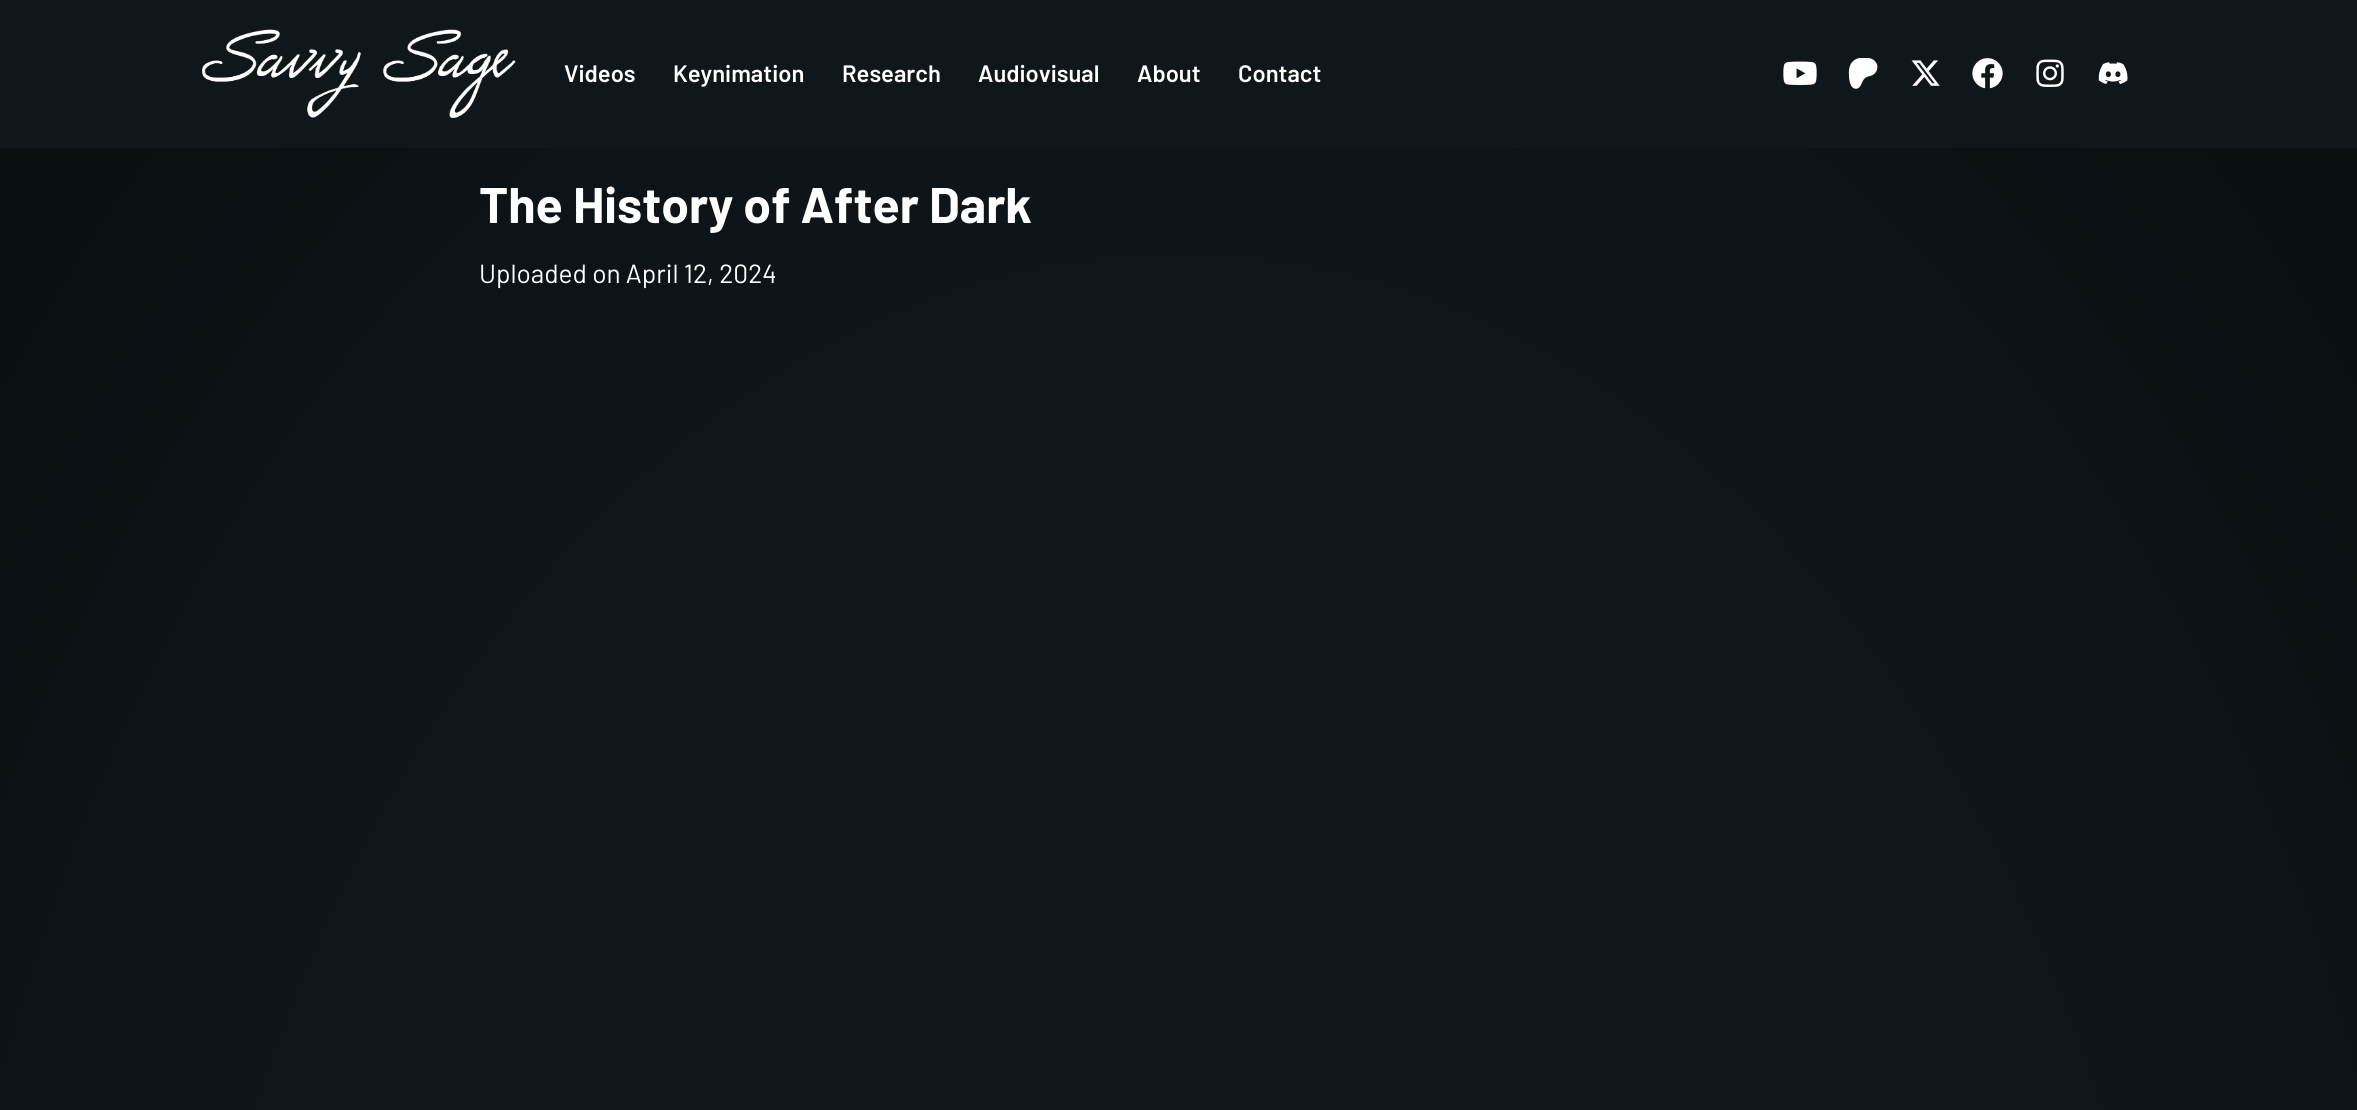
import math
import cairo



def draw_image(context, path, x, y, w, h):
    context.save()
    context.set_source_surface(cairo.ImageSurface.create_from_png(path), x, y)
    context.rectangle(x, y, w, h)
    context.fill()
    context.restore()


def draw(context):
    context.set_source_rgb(1, 1, 1)
    context.paint()
    gradient = cairo.RadialGradient(0, 0, 0, 0, 0, 1)
    gradient.set_matrix(cairo.Matrix(1 / 1667, 0, 0, 1 / 2457, -1 * 1179 / 1667, -1 * 1738 / 2457))
    gradient.add_color_stop_rgba(0.5, 16 / 255, 23 / 255, 27 / 255, 1)
    gradient.add_color_stop_rgba(1, 9 / 255, 14 / 255, 16 / 255, 1)
    context.set_source(gradient)
    context.rectangle(0, 148, 2357, 962)
    context.fill()
    context.set_source_rgb(16 / 255, 23 / 255, 27 / 255)
    context.rectangle(0, 0, 2357, 148)
    context.fill()
    draw_image(context, "images/1.png", 202, 29, 314, 90)
    draw_image(context, "images/2.png", 1783, 61, 34, 24)
    draw_image(context, "images/3.png", 1848, 58, 30, 31)
    draw_image(context, "images/4.png", 1911, 60, 29, 26)
    draw_image(context, "images/5.png", 1972, 58, 31, 31)
    draw_image(context, "images/6.png", 2036, 59, 28, 28)
    draw_image(context, "images/7.png", 2098, 62, 30, 22)
    context.select_font_face("Barlow SemiBold")
    context.set_font_size(23.75)
    context.set_source_rgb(1, 1, 1)
    context.move_to(564, 82)
    context.show_text("Videos")
    context.move_to(673, 82)
    context.show_text("Keynimation")
    context.move_to(842, 82)
    context.show_text("Research")
    context.move_to(978, 82)
    context.show_text("Audiovisual")
    context.move_to(1137, 82)
    context.show_text("About")
    context.move_to(1238, 82)
    context.show_text("Contact")
    context.select_font_face("Barlow", cairo.FontSlant.NORMAL, cairo.FontWeight.BOLD)
    context.set_font_size(50)
    context.move_to(479, 223)
    context.show_text("The History of After Dark")
    context.select_font_face("Barlow")
    context.set_font_size(26.25)
    context.move_to(479, 283)
    context.show_text("Uploaded on April 12, 2024")


surface = cairo.ImageSurface(cairo.Format.RGB24, 2357, 1110)
context = cairo.Context(surface)
options = cairo.FontOptions()
options.set_hint_metrics(cairo.HintMetrics.OFF)
options.set_hint_style(cairo.HintStyle.NONE)
context.set_font_options(options)
context.set_miter_limit(4)
draw(context)
surface.write_to_png("out.png")
